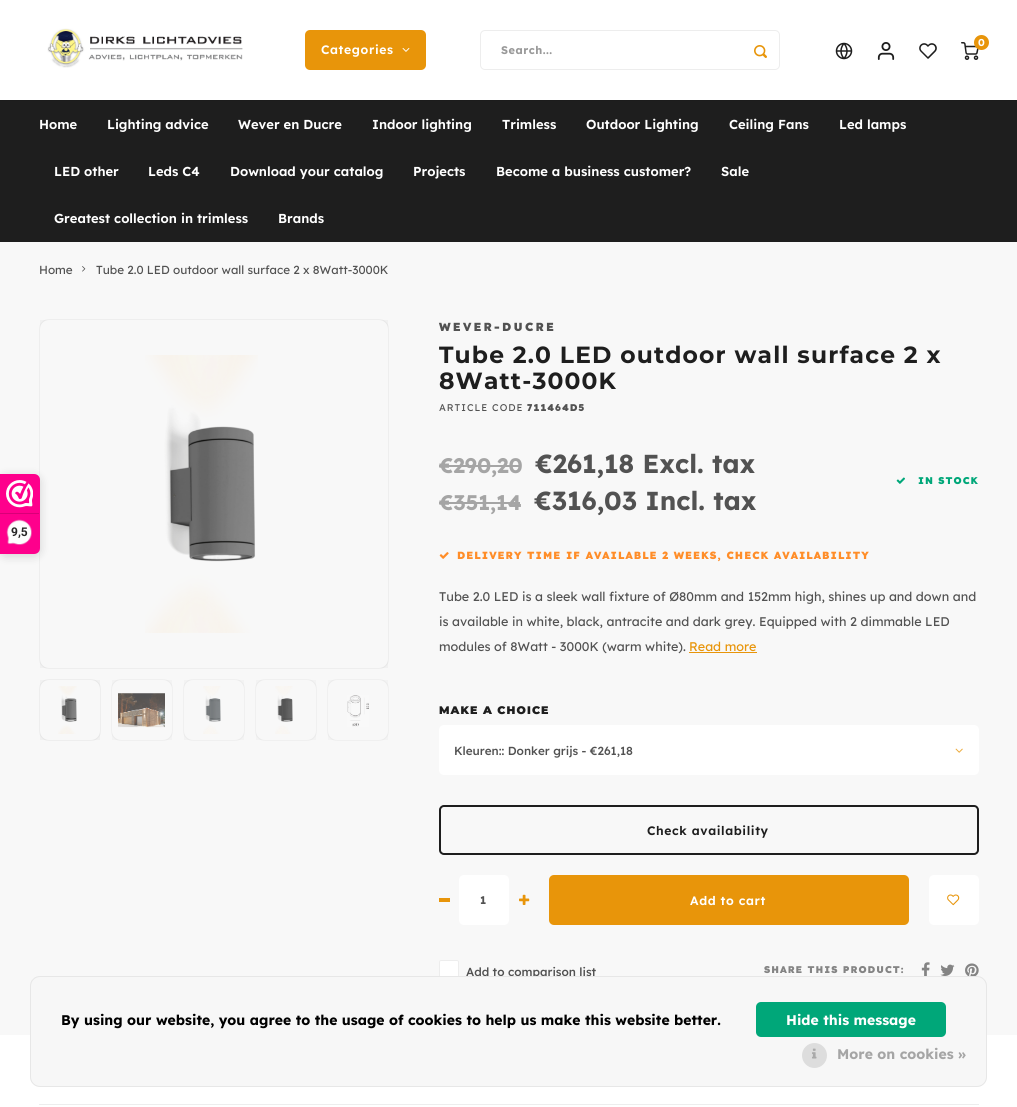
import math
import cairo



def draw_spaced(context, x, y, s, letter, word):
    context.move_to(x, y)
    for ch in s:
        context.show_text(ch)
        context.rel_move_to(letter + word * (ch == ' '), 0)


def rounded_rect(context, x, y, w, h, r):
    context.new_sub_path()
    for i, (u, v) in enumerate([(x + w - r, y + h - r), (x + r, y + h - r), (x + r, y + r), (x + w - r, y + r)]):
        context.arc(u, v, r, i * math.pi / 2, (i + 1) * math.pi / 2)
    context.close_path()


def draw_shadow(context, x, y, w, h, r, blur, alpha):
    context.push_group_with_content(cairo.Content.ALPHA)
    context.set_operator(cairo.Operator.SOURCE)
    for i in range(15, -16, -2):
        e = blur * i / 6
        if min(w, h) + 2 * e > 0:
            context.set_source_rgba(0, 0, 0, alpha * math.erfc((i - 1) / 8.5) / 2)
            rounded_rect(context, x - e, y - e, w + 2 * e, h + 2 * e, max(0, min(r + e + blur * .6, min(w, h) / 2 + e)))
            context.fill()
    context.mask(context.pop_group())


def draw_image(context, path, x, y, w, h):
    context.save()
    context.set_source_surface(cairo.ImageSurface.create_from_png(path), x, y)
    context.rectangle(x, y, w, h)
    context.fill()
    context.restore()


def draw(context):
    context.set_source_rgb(1, 1, 1)
    context.paint()
    draw_image(context, "images/1.png", 47, 28, 196, 40)
    draw_image(context, "images/2.png", 835, 42, 18, 18)
    draw_image(context, "images/3.png", 877, 42, 18, 18)
    draw_image(context, "images/4.png", 919, 43, 18, 16)
    draw_image(context, "images/5.png", 961, 42, 18, 18)
    context.set_source_rgb(232 / 255, 149 / 255, 10 / 255)
    context.arc(981.5, 42.5, 7.5, 0, 2 * math.pi)
    context.fill()
    rounded_rect(context, 305, 30, 121, 40, 5)
    context.fill()
    draw_image(context, "images/6.png", 402, 48, 8, 4)
    rounded_rect(context, 480.5, 30.5, 299, 39, 4.5)
    context.set_source_rgb(237 / 255, 237 / 255, 237 / 255)
    context.set_line_width(1)
    context.stroke()
    draw_image(context, "images/7.png", 754, 45, 13, 13)
    context.set_source_rgb(30 / 255, 30 / 255, 30 / 255)
    context.rectangle(0, 101, 1017, 141)
    context.fill()
    context.set_source_rgb(28 / 255, 28 / 255, 28 / 255)
    context.rectangle(0, 100, 1017, 1)
    context.fill()
    context.set_source_rgb(248 / 255, 248 / 255, 248 / 255)
    context.rectangle(0, 242, 1017, 793)
    context.fill()
    context.set_source_rgb(1, 1, 1)
    rounded_rect(context, 39, 319, 350, 350, 10)
    context.fill()
    rounded_rect(context, 39.5, 319.5, 349, 349, 9.5)
    context.set_source_rgba(0, 0, 0, 0.07)
    context.stroke()
    draw_image(context, "images/11.png", 145, 355, 113, 278)
    context.set_source_rgba(0, 0, 0, 0.03)
    context.rectangle(40, 320, 348, 348)
    context.fill()
    context.set_source_rgb(0, 0, 0)
    draw_shadow(context, 0, 476, 40, 80, 6, 5, 0.15)
    context.set_source_rgb(254 / 255, 0, 140 / 255)
    context.new_path()
    context.move_to(0, 474)
    context.line_to(34, 474)
    context.curve_to(37.5, 474, 40, 476.5, 40, 480)
    context.line_to(40, 548)
    context.curve_to(40, 551.5, 37.5, 554, 34, 554)
    context.line_to(0, 554)
    context.close_path()
    context.fill()
    draw_image(context, "images/8.png", 6, 480, 27, 28)
    context.set_source_rgb(216 / 255, 0, 119 / 255)
    context.rectangle(0, 513, 39, 1)
    context.fill()
    draw_image(context, "images/9.png", 6, 519, 26, 26)
    draw_image(context, "images/10.png", 82, 266, 4, 6)
    context.set_source_rgb(1, 1, 1)
    rounded_rect(context, 39, 679, 62, 62, 10)
    context.fill()
    rounded_rect(context, 39.5, 679.5, 61, 61, 9.5)
    context.set_source_rgba(0, 0, 0, 0.07)
    context.stroke()
    draw_image(context, "images/12.png", 58, 686, 19, 48)
    context.set_source_rgba(0, 0, 0, 0.03)
    context.rectangle(40, 680, 60, 60)
    context.fill()
    context.set_source_rgb(253 / 255, 253 / 255, 253 / 255)
    rounded_rect(context, 111.5, 679.5, 61, 61, 9.5)
    context.fill_preserve()
    context.set_source_rgb(240 / 255, 240 / 255, 240 / 255)
    context.stroke()
    draw_image(context, "images/13.png", 118, 693, 47, 35)
    context.set_source_rgba(74 / 255, 74 / 255, 74 / 255, 0.03)
    context.rectangle(112, 680, 60, 60)
    context.fill()
    context.set_source_rgb(253 / 255, 253 / 255, 253 / 255)
    rounded_rect(context, 183.5, 679.5, 61, 61, 9.5)
    context.fill_preserve()
    context.set_source_rgb(240 / 255, 240 / 255, 240 / 255)
    context.stroke()
    draw_image(context, "images/14.png", 203, 686, 18, 48)
    context.set_source_rgba(74 / 255, 74 / 255, 74 / 255, 0.03)
    context.rectangle(184, 680, 60, 60)
    context.fill()
    context.set_source_rgb(253 / 255, 253 / 255, 253 / 255)
    rounded_rect(context, 255.5, 679.5, 61, 61, 9.5)
    context.fill_preserve()
    context.set_source_rgb(240 / 255, 240 / 255, 240 / 255)
    context.stroke()
    draw_image(context, "images/15.png", 275, 686, 18, 48)
    context.set_source_rgba(74 / 255, 74 / 255, 74 / 255, 0.03)
    context.rectangle(256, 680, 60, 60)
    context.fill()
    context.set_source_rgb(253 / 255, 253 / 255, 253 / 255)
    rounded_rect(context, 327.5, 679.5, 61, 61, 9.5)
    context.fill_preserve()
    context.set_source_rgb(240 / 255, 240 / 255, 240 / 255)
    context.stroke()
    draw_image(context, "images/16.png", 347, 695, 22, 32)
    context.set_source_rgba(74 / 255, 74 / 255, 74 / 255, 0.03)
    context.rectangle(328, 680, 60, 60)
    context.fill()
    context.set_source_rgb(165 / 255, 165 / 255, 165 / 255)
    context.rectangle(439, 465, 82, 2)
    context.fill()
    context.rectangle(439, 502, 81, 2)
    context.fill()
    draw_image(context, "images/17.png", 896, 477, 9, 7)
    draw_image(context, "images/18.png", 439, 552, 10, 7)
    context.set_source_rgb(232 / 255, 149 / 255, 10 / 255)
    context.rectangle(689, 652, 68, 1)
    context.fill()
    context.set_source_rgb(1, 1, 1)
    rounded_rect(context, 439, 725, 540, 50, 5)
    context.fill()
    draw_image(context, "images/19.png", 955, 748, 8, 5)
    rounded_rect(context, 440, 806, 538, 48, 4)
    context.set_source_rgb(30 / 255, 30 / 255, 30 / 255)
    context.set_line_width(2)
    context.stroke()
    context.set_source_rgb(232 / 255, 149 / 255, 10 / 255)
    context.rectangle(439, 898, 11, 4)
    context.fill()
    context.set_source_rgb(1, 1, 1)
    rounded_rect(context, 459, 875, 50, 50, 5)
    context.fill()
    draw_image(context, "images/20.png", 519, 894, 11, 11)
    context.set_source_rgb(232 / 255, 149 / 255, 10 / 255)
    rounded_rect(context, 549, 875, 360, 50, 5)
    context.fill()
    context.set_source_rgb(1, 1, 1)
    rounded_rect(context, 929, 875, 50, 50, 5)
    context.fill()
    draw_image(context, "images/21.png", 947, 894, 13, 12)
    rounded_rect(context, 439.5, 960.5, 19, 19, 1.5)
    context.fill_preserve()
    context.set_source_rgb(237 / 255, 237 / 255, 237 / 255)
    context.set_line_width(1)
    context.stroke()
    draw_image(context, "images/22.png", 921, 962, 9, 14)
    draw_image(context, "images/23.png", 940, 964, 15, 12)
    draw_image(context, "images/24.png", 965, 963, 14, 13)
    context.rectangle(39, 1104, 940, 1)
    context.fill()
    context.select_font_face("Lexend Deca", cairo.FontSlant.NORMAL, cairo.FontWeight.BOLD)
    context.set_font_size(10)
    context.set_source_rgb(1, 1, 1)
    context.move_to(978, 46)
    context.show_text("0")
    context.select_font_face("Lexend Deca SemiBold")
    context.set_font_size(12.25)
    draw_spaced(context, 321, 54, "Categories", 0.6, 0)
    context.select_font_face("Lexend Deca", cairo.FontSlant.NORMAL, cairo.FontWeight.BOLD)
    context.set_font_size(11)
    context.set_source_rgb(153 / 255, 153 / 255, 153 / 255)
    draw_spaced(context, 501, 54, "Search...", 0.5, 0)
    context.select_font_face("Lexend Deca SemiBold")
    context.set_font_size(13)
    context.set_source_rgb(1, 1, 1)
    context.move_to(39, 129)
    context.show_text("Home")
    context.move_to(107, 129)
    context.show_text("Lighting advice")
    context.move_to(238, 129)
    context.show_text("Wever en Ducre")
    context.move_to(372, 129)
    context.show_text("Indoor lighting")
    context.move_to(502, 129)
    context.show_text("Trimless")
    context.move_to(586, 129)
    context.show_text("Outdoor Lighting")
    context.move_to(729, 129)
    context.show_text("Ceiling Fans")
    context.move_to(839, 129)
    context.show_text("Led lamps")
    context.move_to(54, 176)
    context.show_text("LED other")
    context.move_to(148, 176)
    context.show_text("Leds C4")
    context.move_to(230, 176)
    context.show_text("Download your catalog")
    context.move_to(413, 176)
    context.show_text("Projects")
    context.move_to(496, 176)
    context.show_text("Become a business customer?")
    context.move_to(721, 176)
    context.show_text("Sale")
    context.move_to(54, 223)
    context.show_text("Greatest collection in trimless")
    context.move_to(278, 223)
    context.show_text("Brands")
    context.select_font_face("Roboto", cairo.FontSlant.NORMAL, cairo.FontWeight.BOLD)
    context.set_font_size(12)
    context.set_source_rgb(39 / 255, 38 / 255, 38 / 255)
    context.move_to(11, 536)
    context.show_text("9,5")
    context.select_font_face("Lexend Deca")
    context.set_font_size(11.7)
    context.set_source_rgb(82 / 255, 82 / 255, 82 / 255)
    context.move_to(39, 274)
    context.show_text("Home")
    context.move_to(96, 274)
    context.show_text("Tube 2.0 LED outdoor wall surface 2 x 8Watt-3000K")
    context.select_font_face("Lexend Deca Black")
    draw_spaced(context, 439, 331, "WEVER-DUCRE", 2.25, 0)
    context.select_font_face("Montserrat", cairo.FontSlant.NORMAL, cairo.FontWeight.BOLD)
    context.set_font_size(23.4)
    context.set_source_rgb(30 / 255, 30 / 255, 30 / 255)
    draw_spaced(context, 439, 363, "Tube 2.0 LED outdoor wall surface 2 x", 1.15, 0)
    draw_spaced(context, 439, 389, "8Watt-3000K", 1.15, 0)
    context.select_font_face("Lexend Deca")
    context.set_font_size(9.75)
    context.set_source_rgb(82 / 255, 82 / 255, 82 / 255)
    draw_spaced(context, 439, 411, "ARTICLE CODE", 1, 0)
    context.select_font_face("Lexend Deca Black")
    draw_spaced(context, 527, 411, "711464D5", 1, 0)
    context.select_font_face("Lexend Deca", cairo.FontSlant.NORMAL, cairo.FontWeight.BOLD)
    context.set_font_size(21)
    context.set_source_rgb(165 / 255, 165 / 255, 165 / 255)
    context.move_to(439, 473)
    context.show_text("€290,20")
    context.set_font_size(26)
    context.set_source_rgb(82 / 255, 82 / 255, 82 / 255)
    context.move_to(535, 473)
    context.show_text("€261,18 Excl. tax")
    context.set_font_size(21)
    context.set_source_rgb(165 / 255, 165 / 255, 165 / 255)
    context.move_to(439, 510)
    context.show_text("€351,14")
    context.set_font_size(26)
    context.set_source_rgb(82 / 255, 82 / 255, 82 / 255)
    context.move_to(534, 510)
    context.show_text("€316,03 Incl. tax")
    context.select_font_face("Lexend Deca Black")
    context.set_font_size(9.75)
    context.set_source_rgb(0, 167 / 255, 121 / 255)
    draw_spaced(context, 918, 484, "IN STOCK", 1, 0)
    context.set_font_size(10.4)
    context.set_source_rgb(1, 141 / 255, 40 / 255)
    draw_spaced(context, 457, 559, "DELIVERY TIME IF AVAILABLE 2 WEEKS, CHECK AVAILABILITY", 1.05, 0)
    context.select_font_face("Lexend Deca")
    context.set_font_size(12.6)
    context.set_source_rgb(82 / 255, 82 / 255, 82 / 255)
    context.move_to(439, 601)
    context.show_text("Tube 2.0 LED is a sleek wall fixture of Ø80mm and 152mm high, shines up and down and")
    context.move_to(439, 626)
    context.show_text("is available in white, black, antracite and dark grey. Equipped with 2 dimmable LED")
    context.move_to(439, 651)
    context.show_text("modules of 8Watt - 3000K (warm white).")
    context.set_source_rgb(232 / 255, 149 / 255, 10 / 255)
    context.move_to(689, 651)
    context.show_text("Read more")
    context.select_font_face("Montserrat Black")
    context.set_font_size(11)
    context.set_source_rgb(30 / 255, 30 / 255, 30 / 255)
    draw_spaced(context, 439, 714, "MAKE A CHOICE", 1.1, 0)
    context.select_font_face("Lexend Deca Medium")
    context.set_font_size(11.7)
    context.set_source_rgb(82 / 255, 82 / 255, 82 / 255)
    context.move_to(454, 755)
    context.show_text("Kleuren:: Donker grijs - €261,18")
    context.select_font_face("Lexend Deca SemiBold")
    context.set_font_size(12.25)
    context.set_source_rgb(30 / 255, 30 / 255, 30 / 255)
    draw_spaced(context, 647, 835, "Check availability", 0.6, 0)
    context.select_font_face("Lexend Deca", cairo.FontSlant.NORMAL, cairo.FontWeight.BOLD)
    context.set_font_size(11)
    context.set_source_rgb(82 / 255, 82 / 255, 82 / 255)
    draw_spaced(context, 480, 904, "1", 0.5, 0)
    context.select_font_face("Lexend Deca SemiBold")
    context.set_font_size(12.25)
    context.set_source_rgb(1, 1, 1)
    draw_spaced(context, 690, 905, "Add to cart", 0.6, 0)
    context.select_font_face("Lexend Deca Medium")
    context.set_font_size(11.7)
    context.set_source_rgb(82 / 255, 82 / 255, 82 / 255)
    context.move_to(466, 976)
    context.show_text("Add to comparison list")
    context.select_font_face("Lexend Deca Black")
    context.set_font_size(9.75)
    context.set_source_rgb(132 / 255, 132 / 255, 132 / 255)
    draw_spaced(context, 764, 973, "SHARE THIS PRODUCT:", 1, 0)
    context.set_source_rgb(247 / 255, 247 / 255, 247 / 255)
    rounded_rect(context, 30, 976, 957, 111, 10)
    context.fill()
    rounded_rect(context, 30.5, 976.5, 956, 110, 9.5)
    context.set_source_rgba(0, 0, 0, 0.07)
    context.stroke()
    context.select_font_face("Lexend Deca", cairo.FontSlant.NORMAL, cairo.FontWeight.BOLD)
    context.set_font_size(14)
    context.set_source_rgb(0, 0, 0)
    context.move_to(61, 1025)
    context.show_text("By using our website, you agree to the usage of cookies to help us make this website better.")
    context.set_source_rgb(0, 167 / 255, 121 / 255)
    rounded_rect(context, 756, 1002, 190, 35, 5)
    context.fill()
    context.set_source_rgb(1, 1, 1)
    context.move_to(786, 1025)
    context.show_text("Hide this message")
    context.set_source_rgb(221 / 255, 221 / 255, 221 / 255)
    context.new_path()
    context.arc(814.5, 1055.5, 12.5, 0, 2 * math.pi)
    context.fill()
    draw_image(context, "images/25.png", 812, 1048, 5, 11)
    context.set_source_rgb(165 / 255, 165 / 255, 165 / 255)
    context.move_to(837, 1059)
    context.show_text("More on cookies »")


surface = cairo.ImageSurface(cairo.Format.RGB24, 1017, 1107)
context = cairo.Context(surface)
options = cairo.FontOptions()
options.set_hint_metrics(cairo.HintMetrics.OFF)
options.set_hint_style(cairo.HintStyle.NONE)
context.set_font_options(options)
context.set_miter_limit(4)
draw(context)
surface.write_to_png("out.png")
